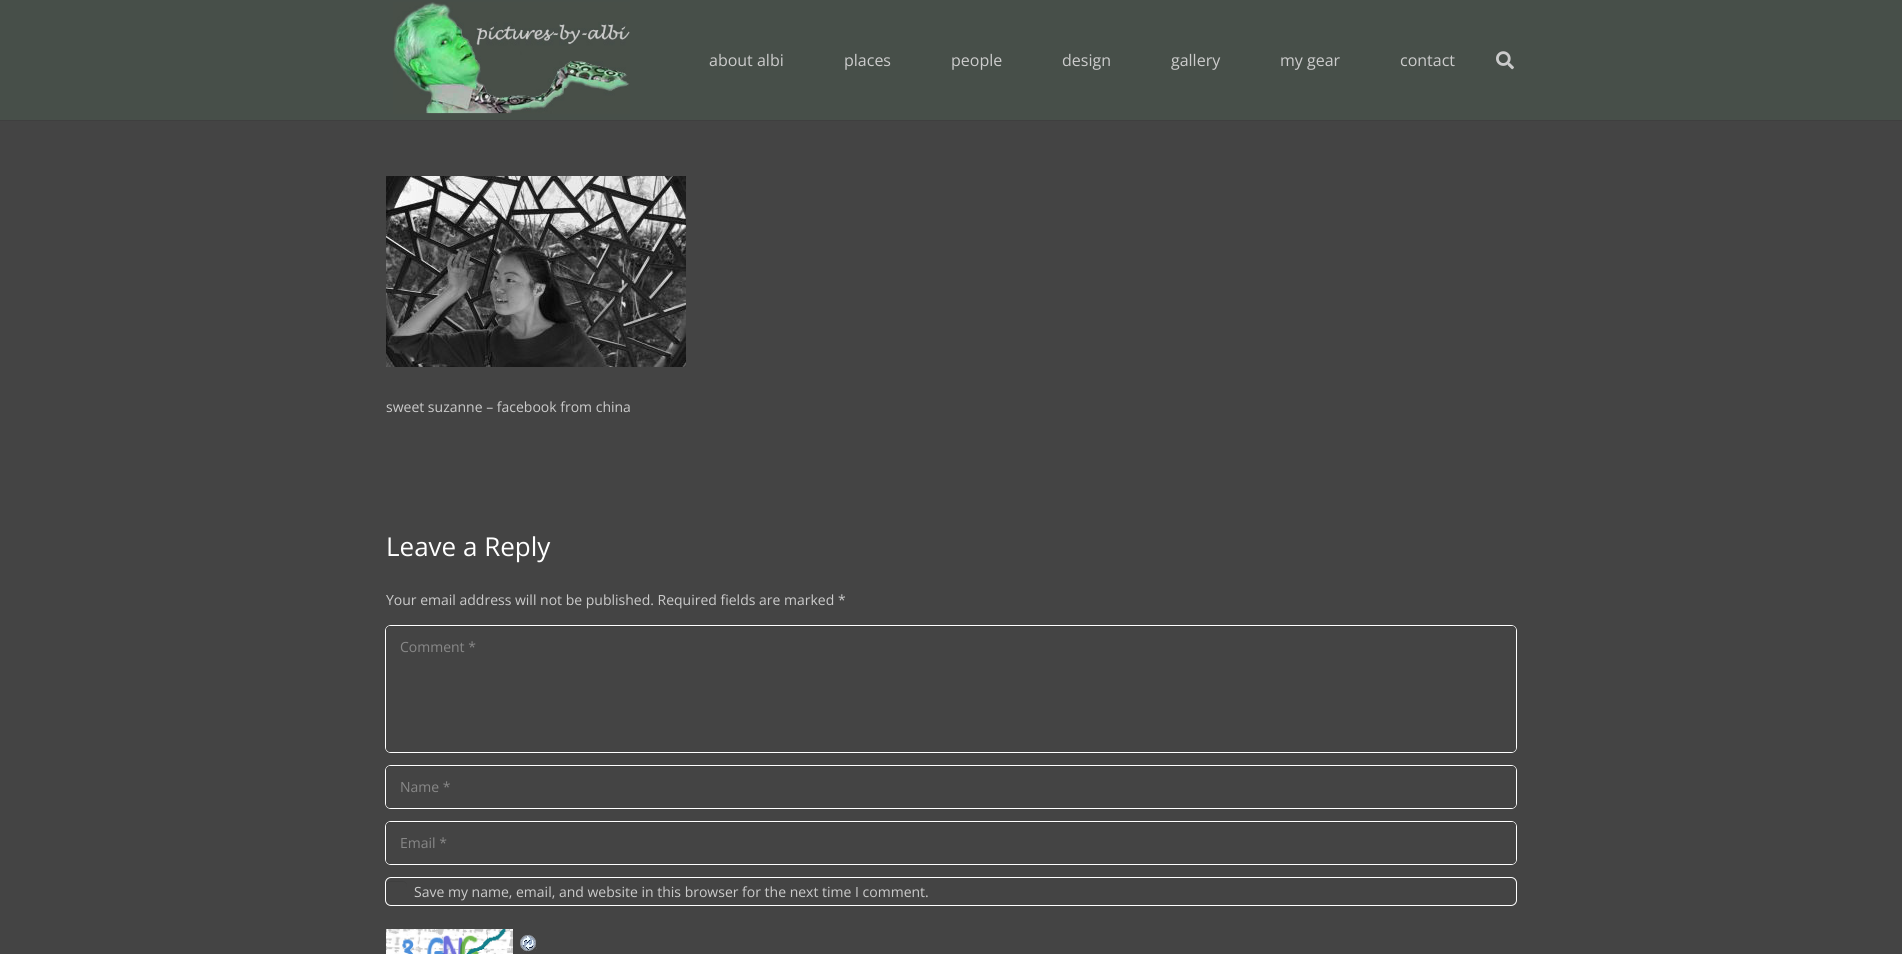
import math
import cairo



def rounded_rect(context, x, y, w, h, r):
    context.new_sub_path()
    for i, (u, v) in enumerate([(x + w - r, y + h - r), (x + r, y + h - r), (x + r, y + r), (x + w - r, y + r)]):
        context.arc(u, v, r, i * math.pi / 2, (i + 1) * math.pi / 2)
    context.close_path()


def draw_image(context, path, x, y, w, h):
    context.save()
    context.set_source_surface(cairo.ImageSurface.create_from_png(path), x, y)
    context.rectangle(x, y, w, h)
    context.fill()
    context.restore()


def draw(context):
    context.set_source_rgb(68 / 255, 68 / 255, 68 / 255)
    context.paint()
    context.set_source_rgb(63 / 255, 63 / 255, 63 / 255)
    context.rectangle(0, 120, 1902, 1)
    context.fill()
    context.set_source_rgb(71 / 255, 79 / 255, 73 / 255)
    context.rectangle(0, 0, 1902, 120)
    context.fill()
    draw_image(context, "images/1.png", 393, 2, 237, 112)
    draw_image(context, "images/2.png", 1496, 51, 18, 19)
    draw_image(context, "images/3.png", 386, 176, 300, 191)
    rounded_rect(context, 385.5, 625.5, 1131, 127, 5.5)
    context.set_source_rgb(1, 1, 1)
    context.set_line_width(1)
    context.stroke()
    context.set_source_rgb(68 / 255, 68 / 255, 68 / 255)
    rounded_rect(context, 386, 626, 1130, 126, 4)
    context.fill()
    context.set_source_rgba(0, 0, 0, 0.08)
    context.new_path()
    context.move_to(390, 627)
    context.line_to(1512, 627)
    context.curve_to(1514, 627, 1516, 629, 1516, 631)
    context.curve_to(1516, 628, 1515, 626, 1512, 626)
    context.line_to(390, 626)
    context.curve_to(387, 626, 386, 628, 386, 631)
    context.curve_to(386, 629, 388, 627, 390, 627)
    context.close_path()
    context.fill()
    rounded_rect(context, 385.5, 765.5, 1131, 43, 5.5)
    context.set_source_rgb(1, 1, 1)
    context.stroke()
    context.set_source_rgb(68 / 255, 68 / 255, 68 / 255)
    rounded_rect(context, 386, 766, 1130, 42, 4)
    context.fill()
    context.set_source_rgba(0, 0, 0, 0.08)
    context.new_path()
    context.move_to(390, 767)
    context.line_to(1512, 767)
    context.curve_to(1514, 767, 1516, 769, 1516, 771)
    context.curve_to(1516, 768, 1515, 766, 1512, 766)
    context.line_to(390, 766)
    context.curve_to(387, 766, 386, 768, 386, 771)
    context.curve_to(386, 769, 388, 767, 390, 767)
    context.close_path()
    context.fill()
    rounded_rect(context, 385.5, 821.5, 1131, 43, 5.5)
    context.set_source_rgb(1, 1, 1)
    context.stroke()
    context.set_source_rgb(68 / 255, 68 / 255, 68 / 255)
    rounded_rect(context, 386, 822, 1130, 42, 4)
    context.fill()
    context.set_source_rgba(0, 0, 0, 0.08)
    context.new_path()
    context.move_to(390, 823)
    context.line_to(1512, 823)
    context.curve_to(1514, 823, 1516, 825, 1516, 827)
    context.curve_to(1516, 824, 1515, 822, 1512, 822)
    context.line_to(390, 822)
    context.curve_to(387, 822, 386, 824, 386, 827)
    context.curve_to(386, 825, 388, 823, 390, 823)
    context.close_path()
    context.fill()
    rounded_rect(context, 385.5, 877.5, 1131, 28, 5.5)
    context.set_source_rgb(1, 1, 1)
    context.stroke()
    context.set_source_rgb(63 / 255, 63 / 255, 63 / 255)
    context.set_fill_rule(cairo.FillRule.EVEN_ODD)
    context.new_path()
    context.move_to(390, 882)
    context.line_to(404, 882)
    context.curve_to(406, 883, 407, 885, 407, 886.5)
    context.curve_to(407, 879.5, 402, 881, 396.5, 881)
    context.curve_to(390.5, 881, 386, 879.5, 386, 887)
    context.curve_to(386, 884.5, 387, 882, 390, 882)
    context.close_path()
    context.move_to(407, 898)
    context.line_to(407, 899)
    context.close_path()
    context.move_to(386, 899)
    context.line_to(386, 898.5)
    context.close_path()
    context.fill()
    draw_image(context, "images/4.png", 386, 929, 127, 25)
    draw_image(context, "images/5.png", 520, 934, 17, 18)
    context.select_font_face("Open Sans")
    context.set_font_size(16)
    context.set_source_rgb(204 / 255, 204 / 255, 204 / 255)
    context.move_to(709, 66)
    context.show_text("about albi")
    context.move_to(844, 66)
    context.show_text("places")
    context.move_to(951, 66)
    context.show_text("people")
    context.move_to(1062, 66)
    context.show_text("design")
    context.move_to(1171, 66)
    context.show_text("gallery")
    context.move_to(1280, 66)
    context.show_text("my gear")
    context.move_to(1400, 66)
    context.show_text("contact")
    context.set_font_size(14)
    context.move_to(386, 412)
    context.show_text("sweet suzanne – facebook from china")
    context.set_font_size(26)
    context.set_source_rgb(1, 1, 1)
    context.move_to(386, 556)
    context.show_text("Leave a Reply")
    context.set_font_size(14)
    context.set_source_rgb(204 / 255, 204 / 255, 204 / 255)
    context.move_to(386, 605)
    context.show_text("Your email address will not be published. Required fields are marked *")
    context.set_source_rgb(136 / 255, 136 / 255, 136 / 255)
    context.move_to(400, 652)
    context.show_text("Comment *")
    context.move_to(400, 792)
    context.show_text("Name *")
    context.move_to(400, 848)
    context.show_text("Email *")
    context.set_source_rgb(204 / 255, 204 / 255, 204 / 255)
    context.move_to(414, 897)
    context.show_text("Save my name, email, and website in this browser for the next time I comment.")


surface = cairo.ImageSurface(cairo.Format.RGB24, 1902, 954)
context = cairo.Context(surface)
options = cairo.FontOptions()
options.set_hint_metrics(cairo.HintMetrics.OFF)
options.set_hint_style(cairo.HintStyle.NONE)
context.set_font_options(options)
context.set_miter_limit(4)
draw(context)
surface.write_to_png("out.png")
